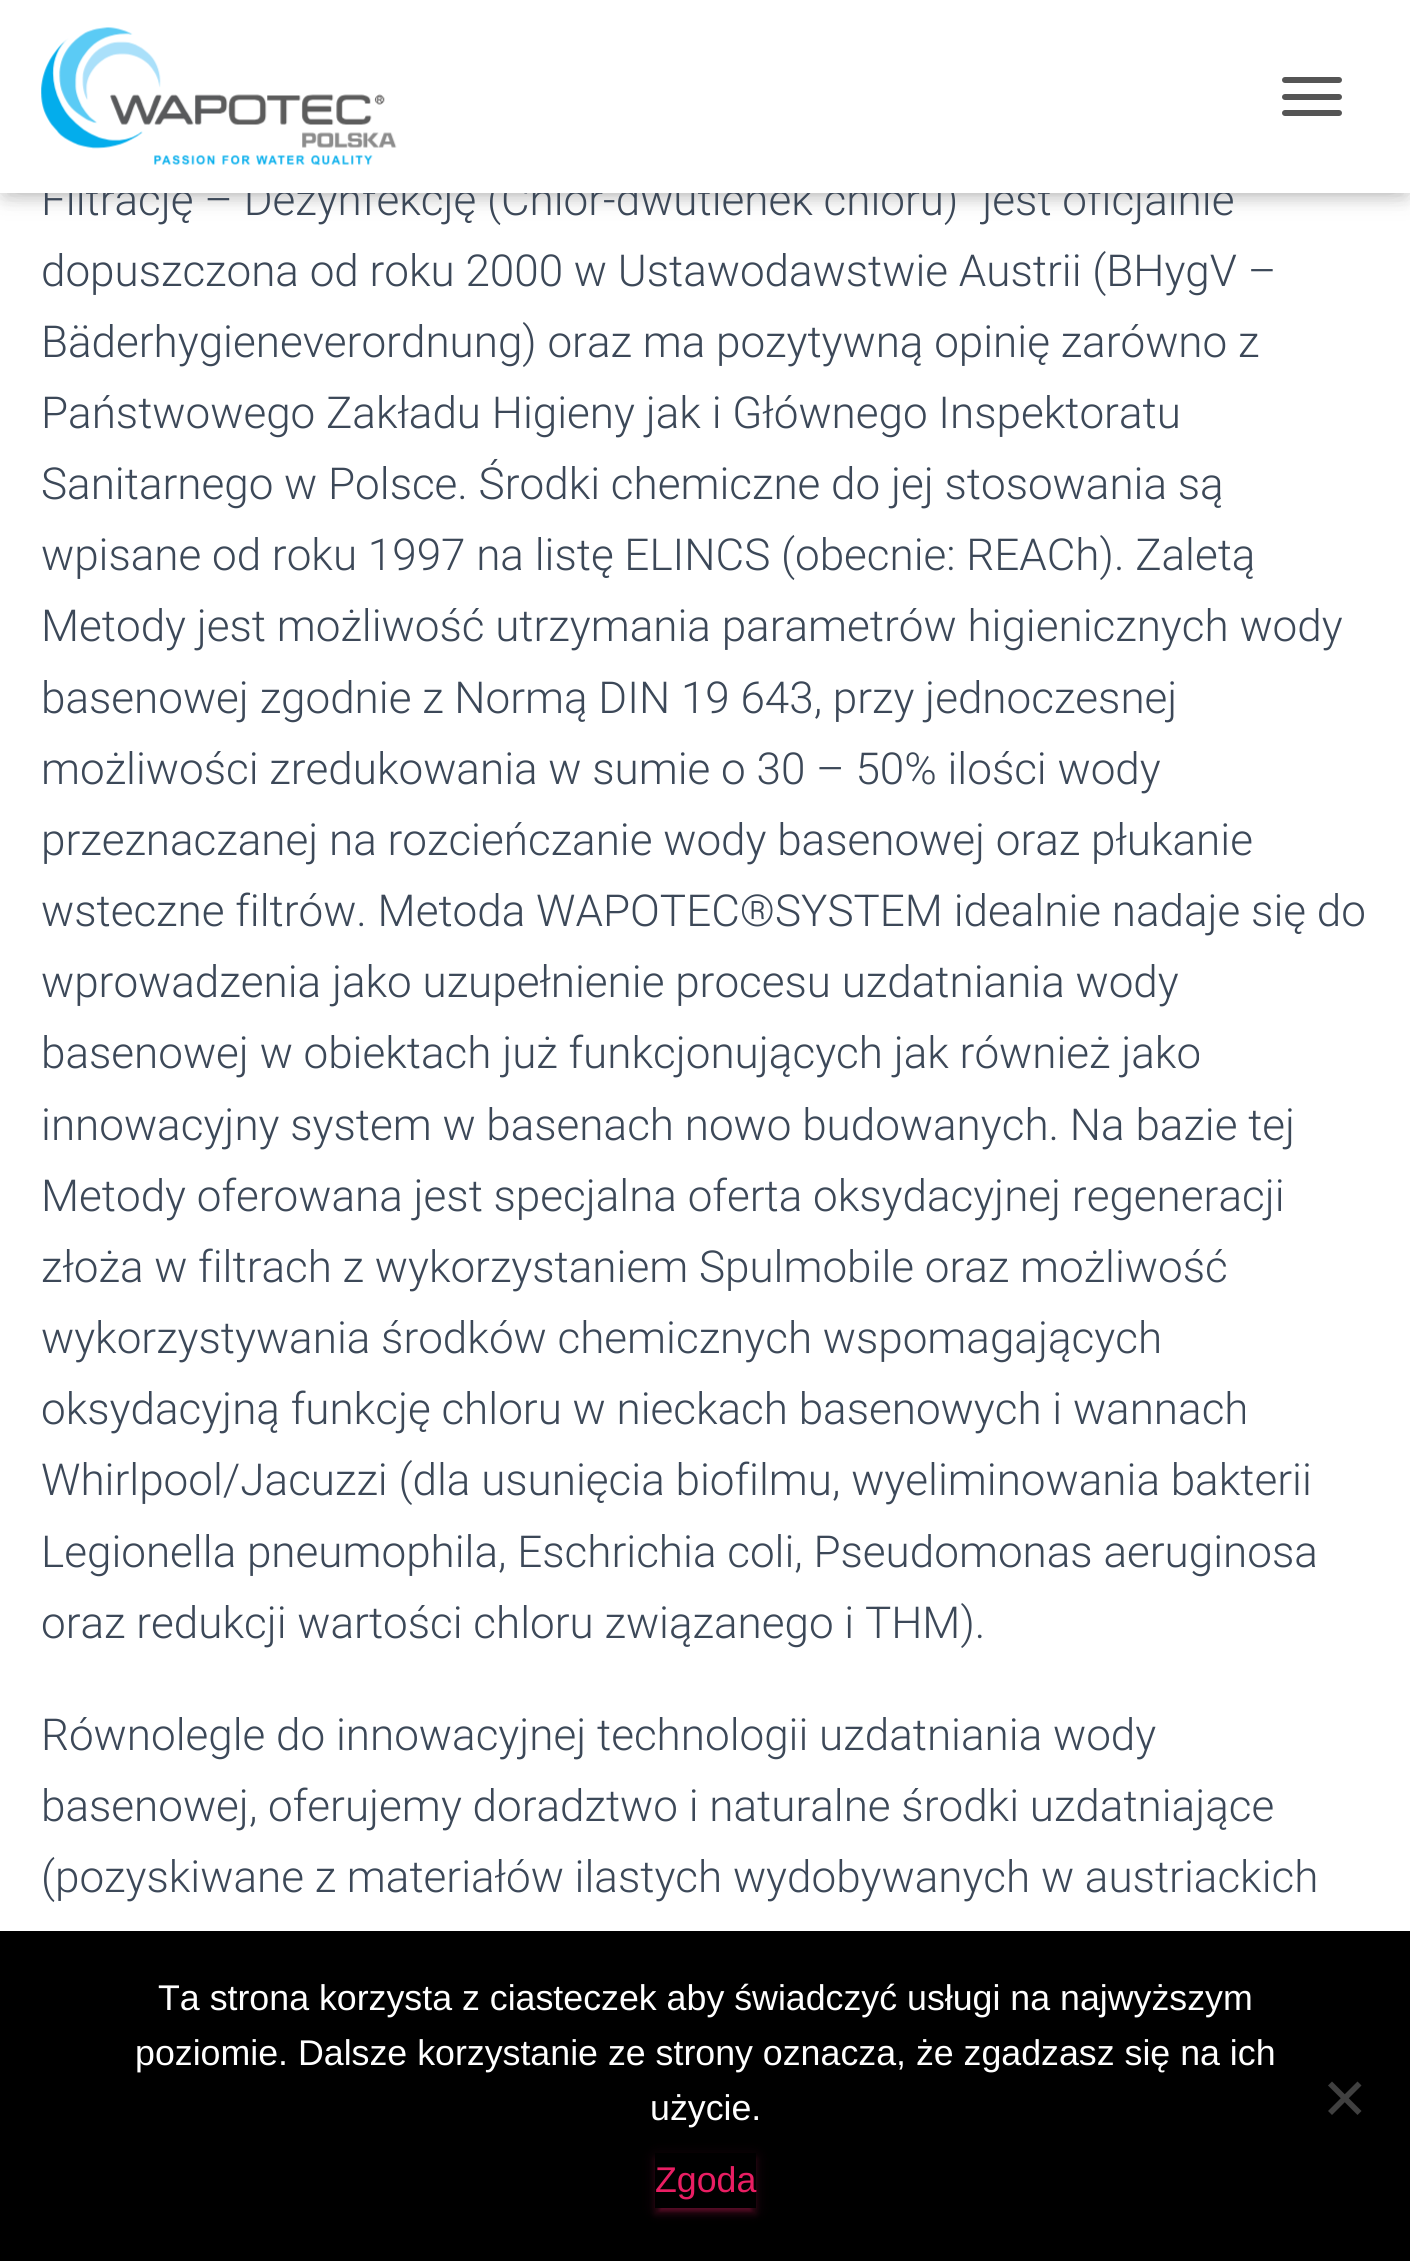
import math
import cairo



def rounded_rect(context, x, y, w, h, r):
    context.new_sub_path()
    for i, (u, v) in enumerate([(x + w - r, y + h - r), (x + r, y + h - r), (x + r, y + r), (x + w - r, y + r)]):
        context.arc(u, v, r, i * math.pi / 2, (i + 1) * math.pi / 2)
    context.close_path()


def draw_shadow(context, x, y, w, h, r, blur, alpha):
    context.push_group_with_content(cairo.Content.ALPHA)
    context.set_operator(cairo.Operator.SOURCE)
    for i in range(15, -16, -2):
        e = blur * i / 6
        if min(w, h) + 2 * e > 0:
            context.set_source_rgba(0, 0, 0, alpha * math.erfc((i - 1) / 8.5) / 2)
            rounded_rect(context, x - e, y - e, w + 2 * e, h + 2 * e, max(0, min(r + e + blur * .6, min(w, h) / 2 + e)))
            context.fill()
    context.mask(context.pop_group())


def draw_image(context, path, x, y, w, h):
    context.save()
    context.set_source_surface(cairo.ImageSurface.create_from_png(path), x, y)
    context.rectangle(x, y, w, h)
    context.fill()
    context.restore()


def draw(context):
    context.set_source_rgb(1, 1, 1)
    context.paint()
    context.set_source_rgb(0, 0, 0)
    draw_shadow(context, 6, 17, 1399, 181, 0, 7, 0.1)
    draw_shadow(context, 0, 3, 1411, 192, 0, 14, 0.12)
    draw_shadow(context, 17, 19, 1377, 160, 0, 14, 0.42)
    context.set_source_rgb(0, 0, 0)
    context.rectangle(0, 1931, 1410, 330)
    context.fill()
    context.set_source_rgb(64 / 255, 64 / 255, 64 / 255)
    context.new_path()
    context.move_to(1357.5, 2081.5)
    context.line_to(1361.5, 2085.5)
    context.line_to(1332, 2115)
    context.line_to(1328, 2111)
    context.close_path()
    context.fill()
    context.new_path()
    context.move_to(1328, 2085.5)
    context.line_to(1332, 2081.5)
    context.line_to(1361.5, 2111)
    context.line_to(1357.5, 2115)
    context.close_path()
    context.fill()
    context.save()
    context.set_fill_rule(cairo.FillRule.EVEN_ODD)
    context.new_path()
    context.move_to(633, 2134)
    context.line_to(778, 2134)
    context.line_to(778, 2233)
    context.line_to(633, 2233)
    context.close_path()
    context.move_to(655, 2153)
    context.line_to(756, 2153)
    context.line_to(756, 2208)
    context.line_to(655, 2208)
    context.close_path()
    context.clip()
    context.set_source_rgb(233 / 255, 30 / 255, 99 / 255)
    draw_shadow(context, 655, 2156, 101, 55, 0, 7, 0.12)
    context.restore()
    context.save()
    context.rectangle(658, 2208, 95, 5)
    context.clip()
    context.set_source_rgb(233 / 255, 30 / 255, 99 / 255)
    draw_shadow(context, 660, 2167, 91, 44, 0, 1.5, 0.2)
    context.restore()
    context.save()
    context.set_fill_rule(cairo.FillRule.EVEN_ODD)
    context.new_path()
    context.move_to(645, 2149)
    context.line_to(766, 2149)
    context.line_to(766, 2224)
    context.line_to(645, 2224)
    context.close_path()
    context.move_to(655, 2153)
    context.line_to(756, 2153)
    context.line_to(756, 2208)
    context.line_to(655, 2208)
    context.close_path()
    context.clip()
    context.set_source_rgb(233 / 255, 30 / 255, 99 / 255)
    draw_shadow(context, 655, 2159, 101, 55, 0, 3, 0.14)
    context.restore()
    context.select_font_face("Roboto Light")
    context.set_font_size(44)
    context.set_source_rgb(60 / 255, 72 / 255, 88 / 255)
    context.move_to(41, 215)
    context.show_text("Filtrację – Dezynfekcję (Chlor-dwutlenek chloru)” jest oficjalnie")
    context.set_source_rgb(1, 1, 1)
    context.rectangle(0, 0, 1410, 193)
    context.fill()
    context.set_source_rgb(85 / 255, 85 / 255, 85 / 255)
    rounded_rect(context, 1282, 110, 60, 6, 3)
    context.fill()
    rounded_rect(context, 1282, 94, 60, 6, 3)
    context.fill()
    rounded_rect(context, 1282, 77, 60, 6, 3)
    context.fill()
    draw_image(context, "images/1.png", 41, 27, 356, 139)
    context.set_source_rgb(60 / 255, 72 / 255, 88 / 255)
    context.move_to(41, 286)
    context.show_text("dopuszczona od roku 2000 w Ustawodawstwie Austrii (BHygV –")
    context.move_to(41, 357)
    context.show_text("Bäderhygieneverordnung) oraz ma pozytywną opinię zarówno z")
    context.move_to(41, 428)
    context.show_text("Państwowego Zakładu Higieny jak i Głównego Inspektoratu")
    context.move_to(41, 499)
    context.show_text("Sanitarnego w Polsce. Środki chemiczne do jej stosowania są")
    context.move_to(41, 570)
    context.show_text("wpisane od roku 1997 na listę ELINCS (obecnie: REACh). Zaletą")
    context.move_to(41, 641)
    context.show_text("Metody jest możliwość utrzymania parametrów higienicznych wody")
    context.move_to(41, 713)
    context.show_text("basenowej zgodnie z Normą DIN 19 643, przy jednoczesnej")
    context.move_to(41, 784)
    context.show_text("możliwości zredukowania w sumie o 30 – 50% ilości wody")
    context.move_to(41, 855)
    context.show_text("przeznaczanej na rozcieńczanie wody basenowej oraz płukanie")
    context.move_to(41, 926)
    context.show_text("wsteczne filtrów. Metoda WAPOTEC®SYSTEM idealnie nadaje się do")
    context.move_to(41, 997)
    context.show_text("wprowadzenia jako uzupełnienie procesu uzdatniania wody")
    context.move_to(41, 1068)
    context.show_text("basenowej w obiektach już funkcjonujących jak również jako")
    context.move_to(41, 1140)
    context.show_text("innowacyjny system w basenach nowo budowanych. Na bazie tej")
    context.move_to(41, 1211)
    context.show_text("Metody oferowana jest specjalna oferta oksydacyjnej regeneracji")
    context.move_to(41, 1282)
    context.show_text("złoża w filtrach z wykorzystaniem Spulmobile oraz możliwość")
    context.move_to(41, 1353)
    context.show_text("wykorzystywania środków chemicznych wspomagających")
    context.move_to(41, 1424)
    context.show_text("oksydacyjną funkcję chloru w nieckach basenowych i wannach")
    context.move_to(41, 1495)
    context.show_text("Whirlpool/Jacuzzi (dla usunięcia biofilmu, wyeliminowania bakterii")
    context.move_to(41, 1567)
    context.show_text("Legionella pneumophila, Eschrichia coli, Pseudomonas aeruginosa")
    context.move_to(41, 1638)
    context.show_text("oraz redukcji wartości chloru związanego i THM).")
    context.move_to(41, 1750)
    context.show_text("Równolegle do innowacyjnej technologii uzdatniania wody")
    context.move_to(41, 1821)
    context.show_text("basenowej, oferujemy doradztwo i naturalne środki uzdatniające")
    context.move_to(41, 1892)
    context.show_text("(pozyskiwane z materiałów ilastych wydobywanych w austriackich")
    context.select_font_face("Liberation Sans")
    context.set_font_size(35.75)
    context.set_source_rgb(1, 1, 1)
    context.move_to(158, 2010)
    context.show_text("Ta strona korzysta z ciasteczek aby świadczyć usługi na najwyższym")
    context.move_to(135, 2065)
    context.show_text("poziomie. Dalsze korzystanie ze strony oznacza, że zgadzasz się na ich")
    context.move_to(650, 2120)
    context.show_text("użycie.")
    context.set_source_rgb(233 / 255, 30 / 255, 99 / 255)
    context.move_to(655, 2192)
    context.show_text("Zgoda")


surface = cairo.ImageSurface(cairo.Format.RGB24, 1410, 2261)
context = cairo.Context(surface)
options = cairo.FontOptions()
options.set_hint_metrics(cairo.HintMetrics.OFF)
options.set_hint_style(cairo.HintStyle.NONE)
context.set_font_options(options)
context.set_miter_limit(4)
draw(context)
surface.write_to_png("out.png")
